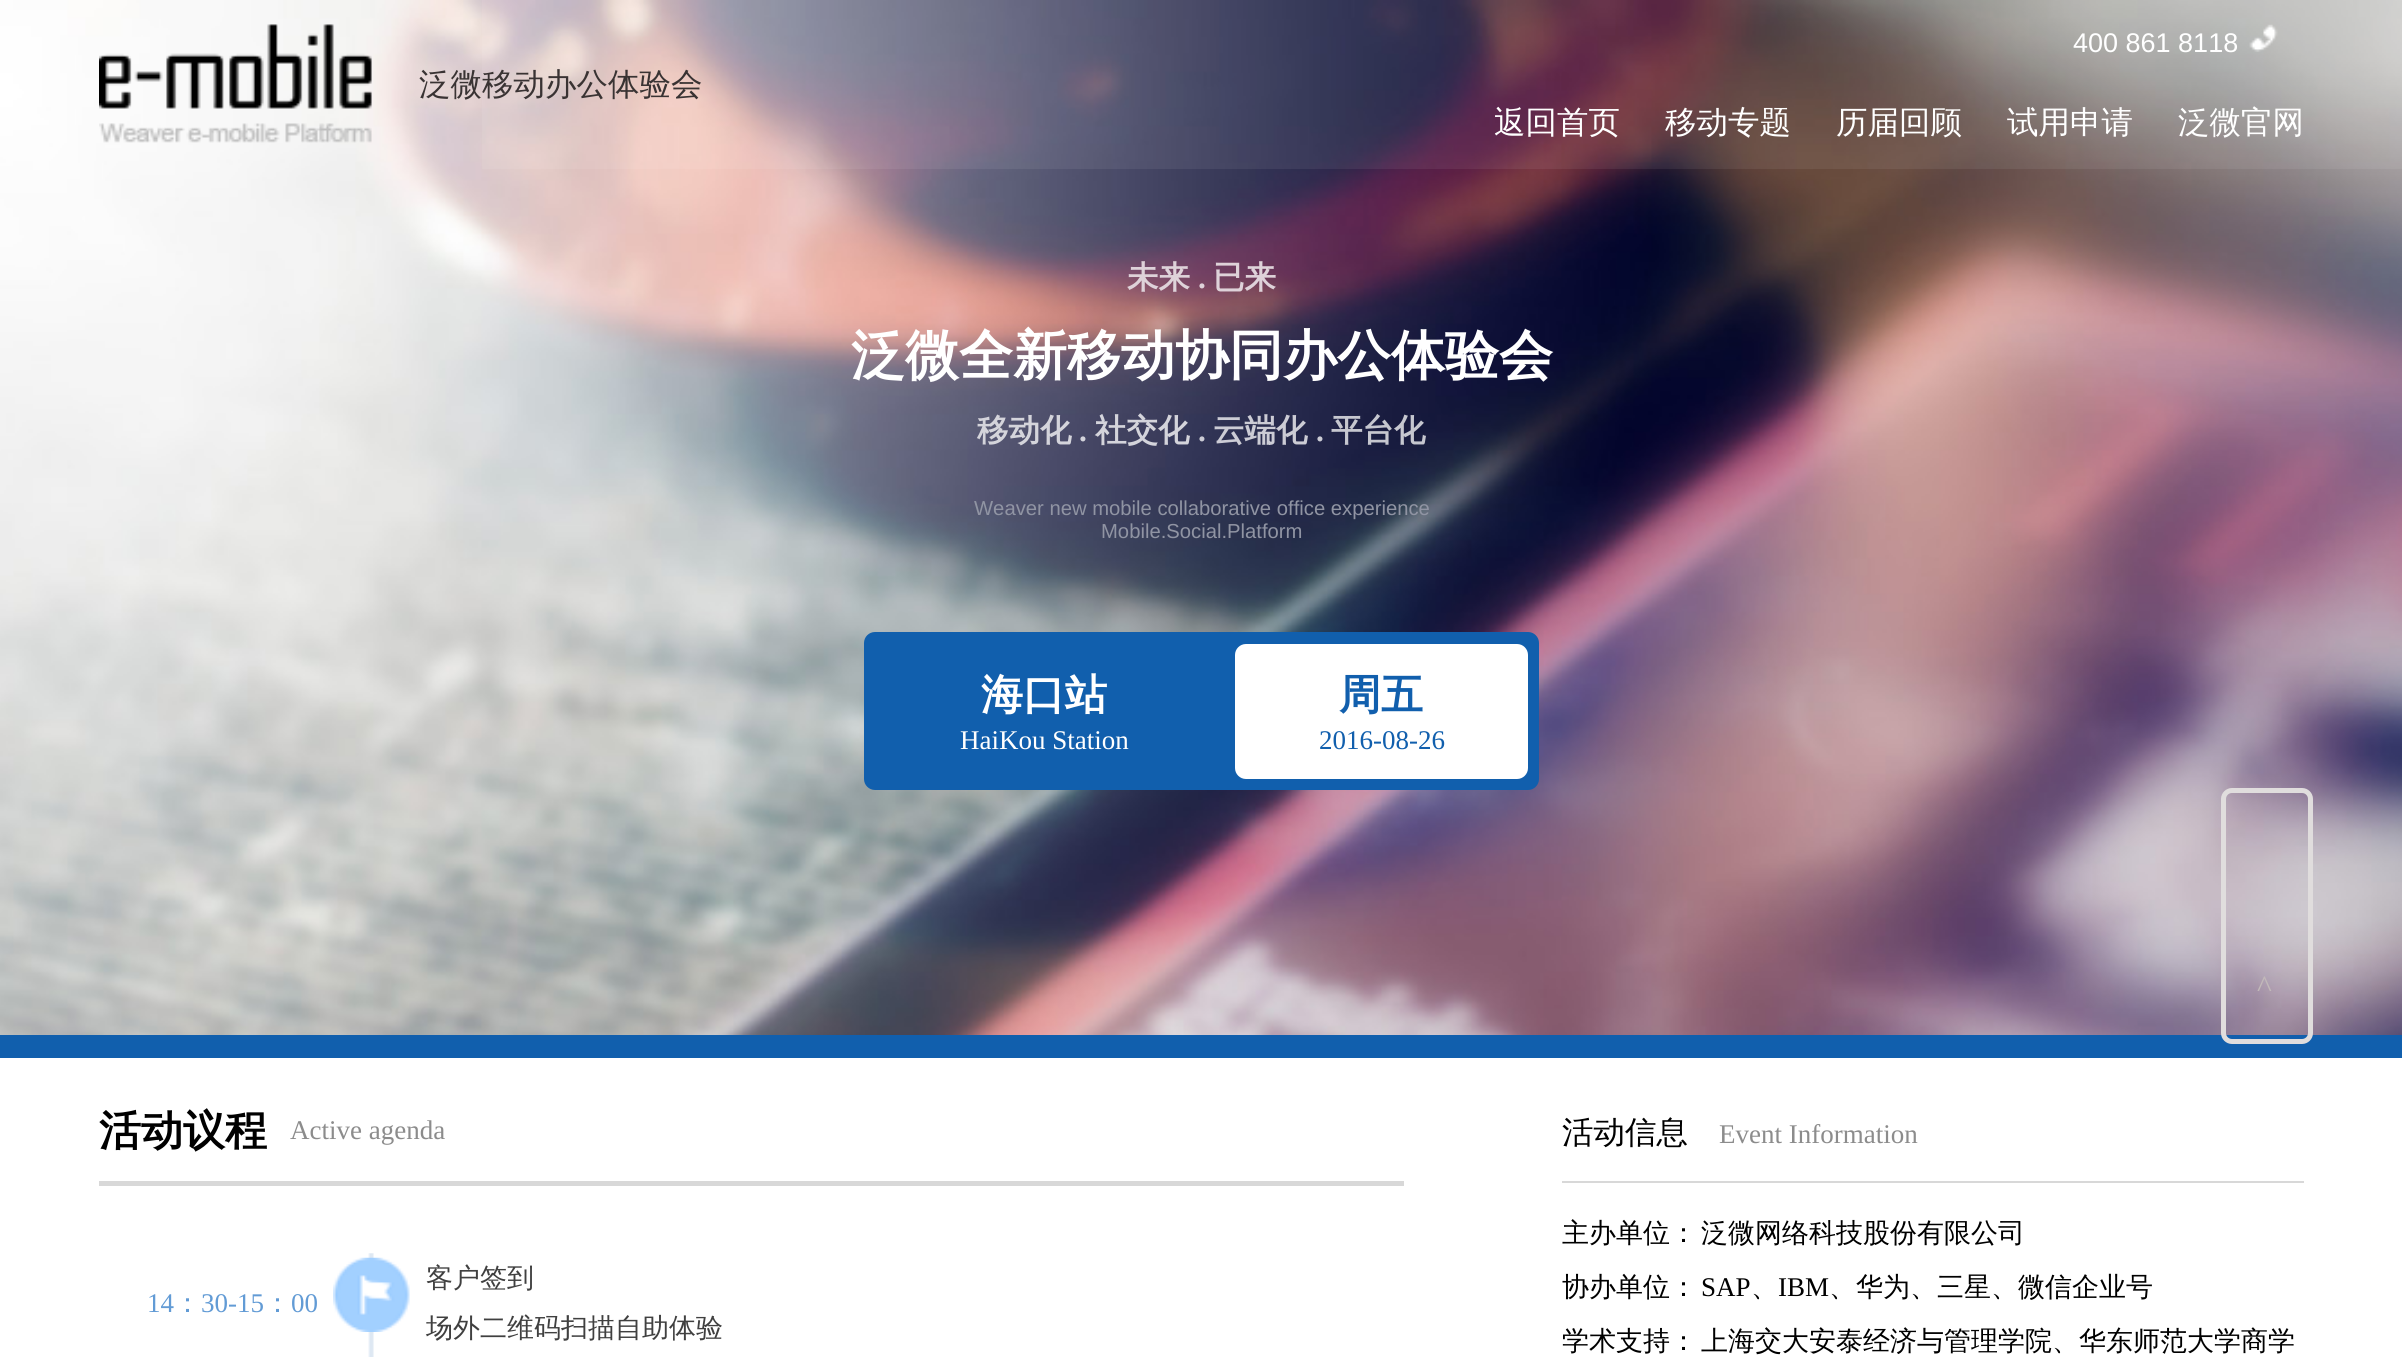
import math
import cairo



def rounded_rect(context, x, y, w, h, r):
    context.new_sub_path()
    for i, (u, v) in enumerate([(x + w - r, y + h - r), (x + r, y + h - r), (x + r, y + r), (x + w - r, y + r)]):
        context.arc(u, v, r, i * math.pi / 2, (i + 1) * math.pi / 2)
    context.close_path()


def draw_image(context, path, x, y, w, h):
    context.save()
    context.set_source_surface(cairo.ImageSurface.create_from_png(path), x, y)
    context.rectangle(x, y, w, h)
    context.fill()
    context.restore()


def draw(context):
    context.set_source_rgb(1, 1, 1)
    context.paint()
    draw_image(context, "images/1.png", 0, 0, 2402, 1035)
    context.set_source_rgba(1, 1, 1, 0.07)
    context.rectangle(482, 0, 1920, 169)
    context.fill()
    draw_image(context, "images/2.png", 99, 24, 273, 119)
    draw_image(context, "images/3.png", 2249, 24, 29, 28)
    context.set_source_rgb(17 / 255, 95 / 255, 173 / 255)
    context.rectangle(0, 1035, 2402, 23)
    context.fill()
    rounded_rect(context, 864, 632, 675, 158, 11)
    context.fill()
    context.set_source_rgb(1, 1, 1)
    rounded_rect(context, 1235, 644, 293, 135, 11)
    context.fill()
    rounded_rect(context, 2223.5, 790.5, 87, 251, 8.5)
    context.set_source_rgb(224 / 255, 221 / 255, 221 / 255)
    context.set_line_width(5)
    context.stroke()
    context.set_source_rgb(216 / 255, 216 / 255, 216 / 255)
    context.rectangle(99, 1181, 1305, 5)
    context.fill()
    draw_image(context, "images/4.png", 368, 1253, 6, 104)
    draw_image(context, "images/5.png", 333, 1257, 77, 75)
    context.rectangle(1562, 1181, 742, 2)
    context.fill()
    context.select_font_face("WenQuanYi Zen Hei Medium")
    context.set_font_size(31.5)
    context.set_source_rgb(57 / 255, 51 / 255, 51 / 255)
    context.move_to(419, 95)
    context.show_text("泛微移动办公体验会")
    context.select_font_face("Liberation Sans")
    context.set_font_size(27)
    context.set_source_rgb(1, 1, 1)
    context.move_to(2073, 52)
    context.show_text("400 861 8118")
    context.select_font_face("WenQuanYi Zen Hei Medium")
    context.set_font_size(31.5)
    context.move_to(1494, 133)
    context.show_text("返回首页")
    context.move_to(1665, 133)
    context.show_text("移动专题")
    context.move_to(1836, 133)
    context.show_text("历届回顾")
    context.move_to(2007, 133)
    context.show_text("试用申请")
    context.move_to(2178, 133)
    context.show_text("泛微官网")
    context.select_font_face("WenQuanYi Zen Hei", cairo.FontSlant.NORMAL, cairo.FontWeight.BOLD)
    context.set_source_rgb(222 / 255, 210 / 255, 217 / 255)
    context.move_to(1127, 288)
    context.show_text("未来")
    context.select_font_face("Liberation Serif", cairo.FontSlant.NORMAL, cairo.FontWeight.BOLD)
    context.move_to(1198, 288)
    context.show_text(".")
    context.select_font_face("WenQuanYi Zen Hei", cairo.FontSlant.NORMAL, cairo.FontWeight.BOLD)
    context.move_to(1213, 288)
    context.show_text("已来")
    context.set_font_size(54)
    context.set_source_rgb(1, 1, 1)
    context.move_to(851, 374)
    context.show_text("泛微全新移动协同办公体验会")
    context.set_font_size(31.5)
    context.set_source_rgb(212 / 255, 212 / 255, 219 / 255)
    context.move_to(977, 441)
    context.show_text("移动化")
    context.select_font_face("Liberation Serif", cairo.FontSlant.NORMAL, cairo.FontWeight.BOLD)
    context.move_to(1079, 441)
    context.show_text(".")
    context.select_font_face("WenQuanYi Zen Hei", cairo.FontSlant.NORMAL, cairo.FontWeight.BOLD)
    context.move_to(1095, 441)
    context.show_text("社交化")
    context.select_font_face("Liberation Serif", cairo.FontSlant.NORMAL, cairo.FontWeight.BOLD)
    context.set_source_rgb(204 / 255, 204 / 255, 213 / 255)
    context.move_to(1198, 441)
    context.show_text(".")
    context.select_font_face("WenQuanYi Zen Hei", cairo.FontSlant.NORMAL, cairo.FontWeight.BOLD)
    context.move_to(1213, 441)
    context.show_text("云端化")
    context.select_font_face("Liberation Serif", cairo.FontSlant.NORMAL, cairo.FontWeight.BOLD)
    context.move_to(1316, 441)
    context.show_text(".")
    context.select_font_face("WenQuanYi Zen Hei", cairo.FontSlant.NORMAL, cairo.FontWeight.BOLD)
    context.set_source_rgb(198 / 255, 199 / 255, 207 / 255)
    context.move_to(1331, 441)
    context.show_text("平台化")
    context.select_font_face("Liberation Sans")
    context.set_font_size(20.25)
    context.set_source_rgb(144 / 255, 148 / 255, 163 / 255)
    context.move_to(974, 515)
    context.show_text("Weaver new mobile collaborative office experience")
    context.move_to(1101, 538)
    context.show_text("Mobile.Social.Platform")
    context.select_font_face("WenQuanYi Zen Hei", cairo.FontSlant.NORMAL, cairo.FontWeight.BOLD)
    context.set_font_size(42)
    context.set_source_rgb(1, 1, 1)
    context.move_to(981, 709)
    context.show_text("海口站")
    context.select_font_face("Liberation Serif")
    context.set_font_size(27)
    context.move_to(960, 749)
    context.show_text("HaiKou Station")
    context.select_font_face("WenQuanYi Zen Hei", cairo.FontSlant.NORMAL, cairo.FontWeight.BOLD)
    context.set_font_size(42)
    context.set_source_rgb(17 / 255, 95 / 255, 173 / 255)
    context.move_to(1339, 709)
    context.show_text("周五")
    context.select_font_face("Liberation Serif")
    context.set_font_size(27)
    context.move_to(1319, 749)
    context.show_text("2016-08-26")
    context.set_font_size(31.5)
    context.set_source_rgb(194 / 255, 185 / 255, 185 / 255)
    context.move_to(2257, 997)
    context.show_text("^")
    context.select_font_face("WenQuanYi Zen Hei", cairo.FontSlant.NORMAL, cairo.FontWeight.BOLD)
    context.set_font_size(42)
    context.set_source_rgb(0, 0, 0)
    context.move_to(99, 1145)
    context.show_text("活动议程")
    context.select_font_face("Liberation Serif")
    context.set_font_size(27)
    context.set_source_rgb(140 / 255, 140 / 255, 140 / 255)
    context.move_to(290, 1139)
    context.show_text("Active agenda")
    context.set_source_rgb(98 / 255, 155 / 255, 213 / 255)
    context.move_to(147, 1312)
    context.show_text("14")
    context.select_font_face("WenQuanYi Zen Hei Medium")
    context.move_to(174, 1312)
    context.show_text("：")
    context.select_font_face("Liberation Serif")
    context.move_to(201, 1312)
    context.show_text("30-15")
    context.select_font_face("WenQuanYi Zen Hei Medium")
    context.move_to(264, 1312)
    context.show_text("：")
    context.select_font_face("Liberation Serif")
    context.move_to(291, 1312)
    context.show_text("00")
    context.select_font_face("WenQuanYi Zen Hei Medium")
    context.set_source_rgb(64 / 255, 64 / 255, 64 / 255)
    context.move_to(426, 1287)
    context.show_text("客户签到")
    context.move_to(426, 1337)
    context.show_text("场外二维码扫描自助体验")
    context.set_font_size(31.5)
    context.set_source_rgb(0, 0, 0)
    context.move_to(1562, 1143)
    context.show_text("活动信息")
    context.select_font_face("Liberation Serif")
    context.set_font_size(27)
    context.set_source_rgb(140 / 255, 140 / 255, 140 / 255)
    context.move_to(1719, 1143)
    context.show_text("Event Information")
    context.select_font_face("WenQuanYi Zen Hei Medium")
    context.set_source_rgb(0, 0, 0)
    context.move_to(1562, 1242)
    context.show_text("主办单位：")
    context.move_to(1701, 1242)
    context.show_text("泛微网络科技股份有限公司")
    context.move_to(1562, 1296)
    context.show_text("协办单位：")
    context.select_font_face("Liberation Serif")
    context.move_to(1701, 1296)
    context.show_text("SAP")
    context.select_font_face("WenQuanYi Zen Hei Medium")
    context.move_to(1751, 1296)
    context.show_text("、")
    context.select_font_face("Liberation Serif")
    context.move_to(1778, 1296)
    context.show_text("IBM")
    context.select_font_face("WenQuanYi Zen Hei Medium")
    context.move_to(1829, 1296)
    context.show_text("、华为、三星、微信企业号")
    context.move_to(1562, 1350)
    context.show_text("学术支持：")
    context.move_to(1701, 1350)
    context.show_text("上海交大安泰经济与管理学院、华东师范大学商学")


surface = cairo.ImageSurface(cairo.Format.RGB24, 2402, 1357)
context = cairo.Context(surface)
options = cairo.FontOptions()
options.set_hint_metrics(cairo.HintMetrics.OFF)
options.set_hint_style(cairo.HintStyle.NONE)
context.set_font_options(options)
context.set_miter_limit(4)
draw(context)
surface.write_to_png("out.png")
